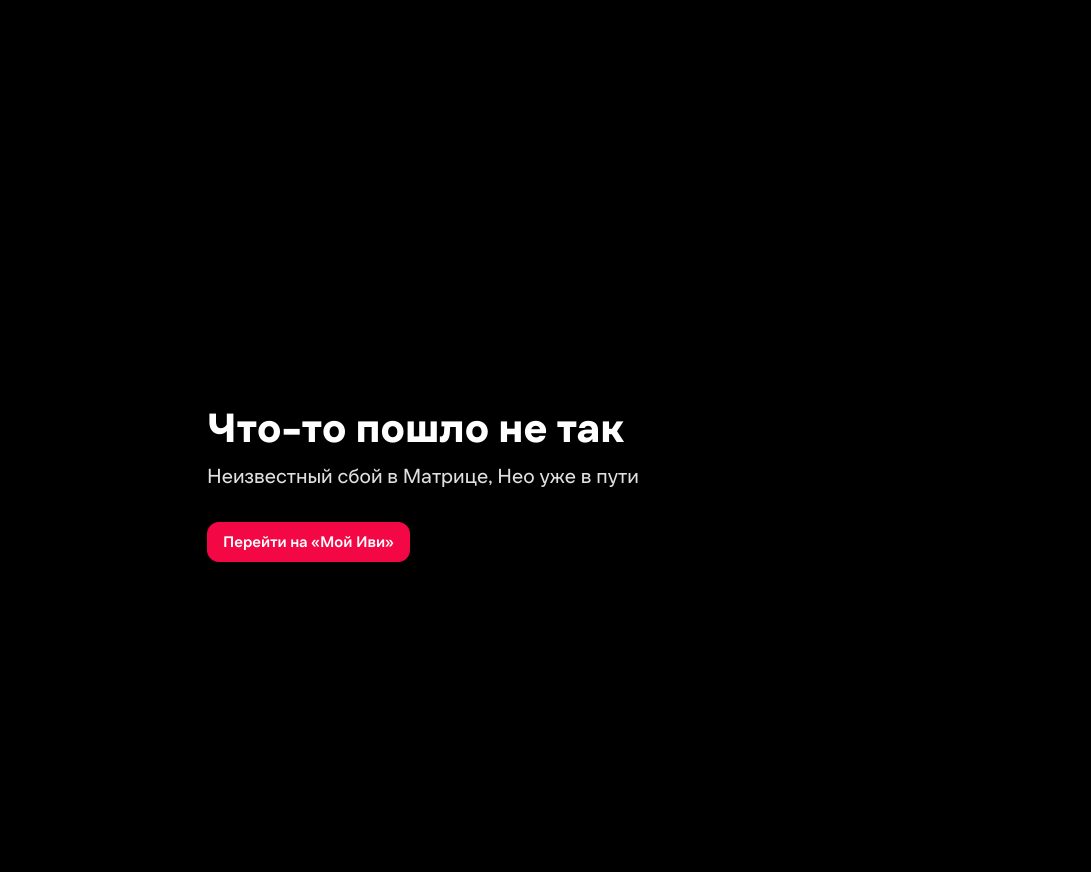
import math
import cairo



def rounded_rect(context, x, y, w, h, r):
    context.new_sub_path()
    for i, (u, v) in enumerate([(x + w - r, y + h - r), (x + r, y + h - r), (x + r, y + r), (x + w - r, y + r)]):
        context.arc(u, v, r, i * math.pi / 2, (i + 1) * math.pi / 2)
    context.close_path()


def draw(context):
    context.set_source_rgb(0, 0, 0)
    context.paint()
    context.set_source_rgb(243 / 255, 7 / 255, 69 / 255)
    rounded_rect(context, 207.5, 522.5, 202, 39, 11.5)
    context.fill_preserve()
    context.set_line_width(1)
    context.stroke()
    context.select_font_face("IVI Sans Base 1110", cairo.FontSlant.NORMAL, cairo.FontWeight.BOLD)
    context.set_font_size(40)
    context.set_source_rgb(1, 1, 1)
    context.move_to(207, 442)
    context.show_text("Что-то пошло не так")
    context.select_font_face("IVI Sans Base 1110")
    context.set_font_size(20)
    context.set_source_rgb(224 / 255, 224 / 255, 224 / 255)
    context.move_to(207, 483)
    context.show_text("Неизвестный сбой в Матрице, Нео уже в пути")
    context.select_font_face("IVI Sans Base 1110 Medium")
    context.set_font_size(15)
    context.set_source_rgb(1, 1, 1)
    context.move_to(223, 547)
    context.show_text("Перейти на «Мой Иви»")


surface = cairo.ImageSurface(cairo.Format.RGB24, 1091, 872)
context = cairo.Context(surface)
options = cairo.FontOptions()
options.set_hint_metrics(cairo.HintMetrics.OFF)
options.set_hint_style(cairo.HintStyle.NONE)
context.set_font_options(options)
context.set_miter_limit(4)
draw(context)
surface.write_to_png("out.png")
